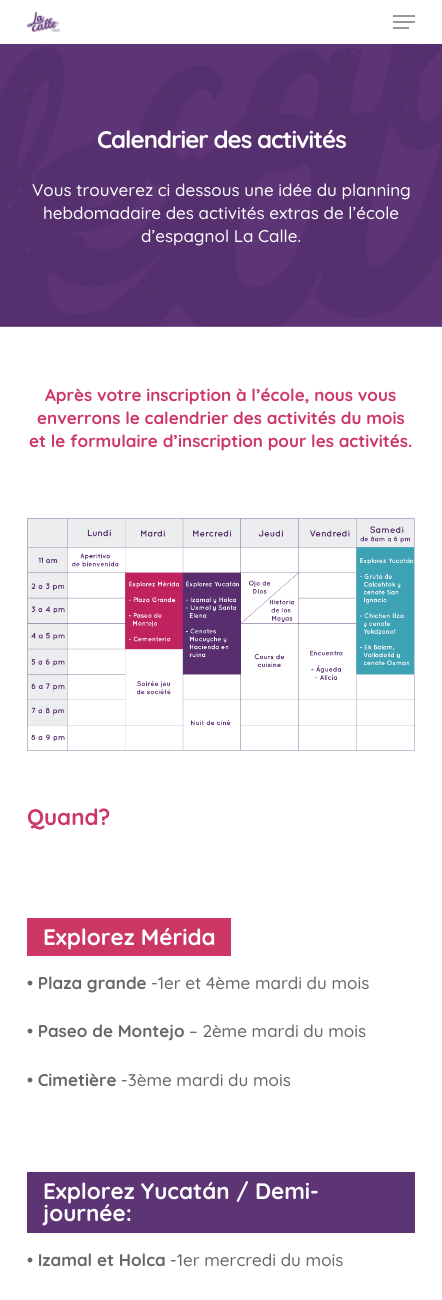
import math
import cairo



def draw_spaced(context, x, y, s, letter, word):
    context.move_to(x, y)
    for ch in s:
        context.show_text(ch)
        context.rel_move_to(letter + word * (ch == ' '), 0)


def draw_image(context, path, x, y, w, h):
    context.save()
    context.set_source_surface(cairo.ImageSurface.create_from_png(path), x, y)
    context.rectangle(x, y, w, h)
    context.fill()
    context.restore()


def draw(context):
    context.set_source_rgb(1, 1, 1)
    context.paint()
    draw_image(context, "images/1.png", 27, 12, 33, 20)
    context.set_source_rgb(153 / 255, 153 / 255, 153 / 255)
    context.rectangle(393, 15, 22, 2)
    context.fill()
    context.rectangle(393, 27, 16, 2)
    context.fill()
    context.rectangle(393, 21, 22, 2)
    context.fill()
    draw_image(context, "images/2.png", 0, 44, 442, 283)
    draw_image(context, "images/3.png", 27, 518, 388, 233)
    context.set_source_rgb(204 / 255, 55 / 255, 102 / 255)
    context.rectangle(27, 918, 204, 38)
    context.fill()
    context.set_source_rgb(93 / 255, 53 / 255, 117 / 255)
    context.rectangle(27, 1172, 388, 61)
    context.fill()
    context.select_font_face("Quicksand", cairo.FontSlant.NORMAL, cairo.FontWeight.BOLD)
    context.set_font_size(24)
    context.set_source_rgb(1, 1, 1)
    draw_spaced(context, 97, 148, "Calendrier des activités", -1, 0)
    context.select_font_face("Quicksand Medium")
    context.set_font_size(17)
    context.move_to(32, 196)
    context.show_text("Vous trouverez ci dessous une idée du planning")
    context.move_to(43, 219)
    context.show_text("hebdomadaire des activités extras de l’école")
    context.move_to(141, 242)
    context.show_text("d’espagnol La Calle.")
    context.select_font_face("Quicksand", cairo.FontSlant.NORMAL, cairo.FontWeight.BOLD)
    context.set_source_rgb(204 / 255, 55 / 255, 102 / 255)
    context.move_to(45, 401)
    context.show_text("Après votre inscription à l’école, nous vous")
    context.move_to(37, 424)
    context.show_text("enverrons le calendrier des activités du mois")
    context.move_to(29, 447)
    context.show_text("et le formulaire d’inscription pour les activités.")
    context.set_font_size(22.4)
    context.move_to(27, 825)
    context.show_text("Quand?")
    context.set_source_rgb(1, 1, 1)
    context.move_to(43, 945)
    context.show_text("Explorez Mérida")
    context.set_font_size(17)
    context.set_source_rgb(103 / 255, 103 / 255, 103 / 255)
    context.move_to(27, 989)
    context.show_text("• Plaza grande")
    context.select_font_face("Quicksand Medium")
    context.move_to(151, 989)
    context.show_text("-1er et 4ème mardi du mois")
    context.select_font_face("Quicksand", cairo.FontSlant.NORMAL, cairo.FontWeight.BOLD)
    context.move_to(27, 1037)
    context.show_text("• Paseo de Montejo")
    context.select_font_face("Quicksand Medium")
    context.move_to(189, 1037)
    context.show_text("– 2ème mardi du mois")
    context.select_font_face("Quicksand", cairo.FontSlant.NORMAL, cairo.FontWeight.BOLD)
    context.move_to(27, 1086)
    context.show_text("• Cimetière")
    context.select_font_face("Quicksand Medium")
    context.move_to(121, 1086)
    context.show_text("-3ème mardi du mois")
    context.select_font_face("Quicksand", cairo.FontSlant.NORMAL, cairo.FontWeight.BOLD)
    context.set_font_size(22.4)
    context.set_source_rgb(1, 1, 1)
    context.move_to(43, 1199)
    context.show_text("Explorez Yucatán / Demi-")
    context.move_to(43, 1221)
    context.show_text("journée:")
    context.set_font_size(17)
    context.set_source_rgb(103 / 255, 103 / 255, 103 / 255)
    context.move_to(27, 1266)
    context.show_text("• Izamal et Holca")
    context.select_font_face("Quicksand Medium")
    context.move_to(170, 1266)
    context.show_text("-1er mercredi du mois")


surface = cairo.ImageSurface(cairo.Format.RGB24, 442, 1300)
context = cairo.Context(surface)
options = cairo.FontOptions()
options.set_hint_metrics(cairo.HintMetrics.OFF)
options.set_hint_style(cairo.HintStyle.NONE)
context.set_font_options(options)
context.set_miter_limit(4)
draw(context)
surface.write_to_png("out.png")
